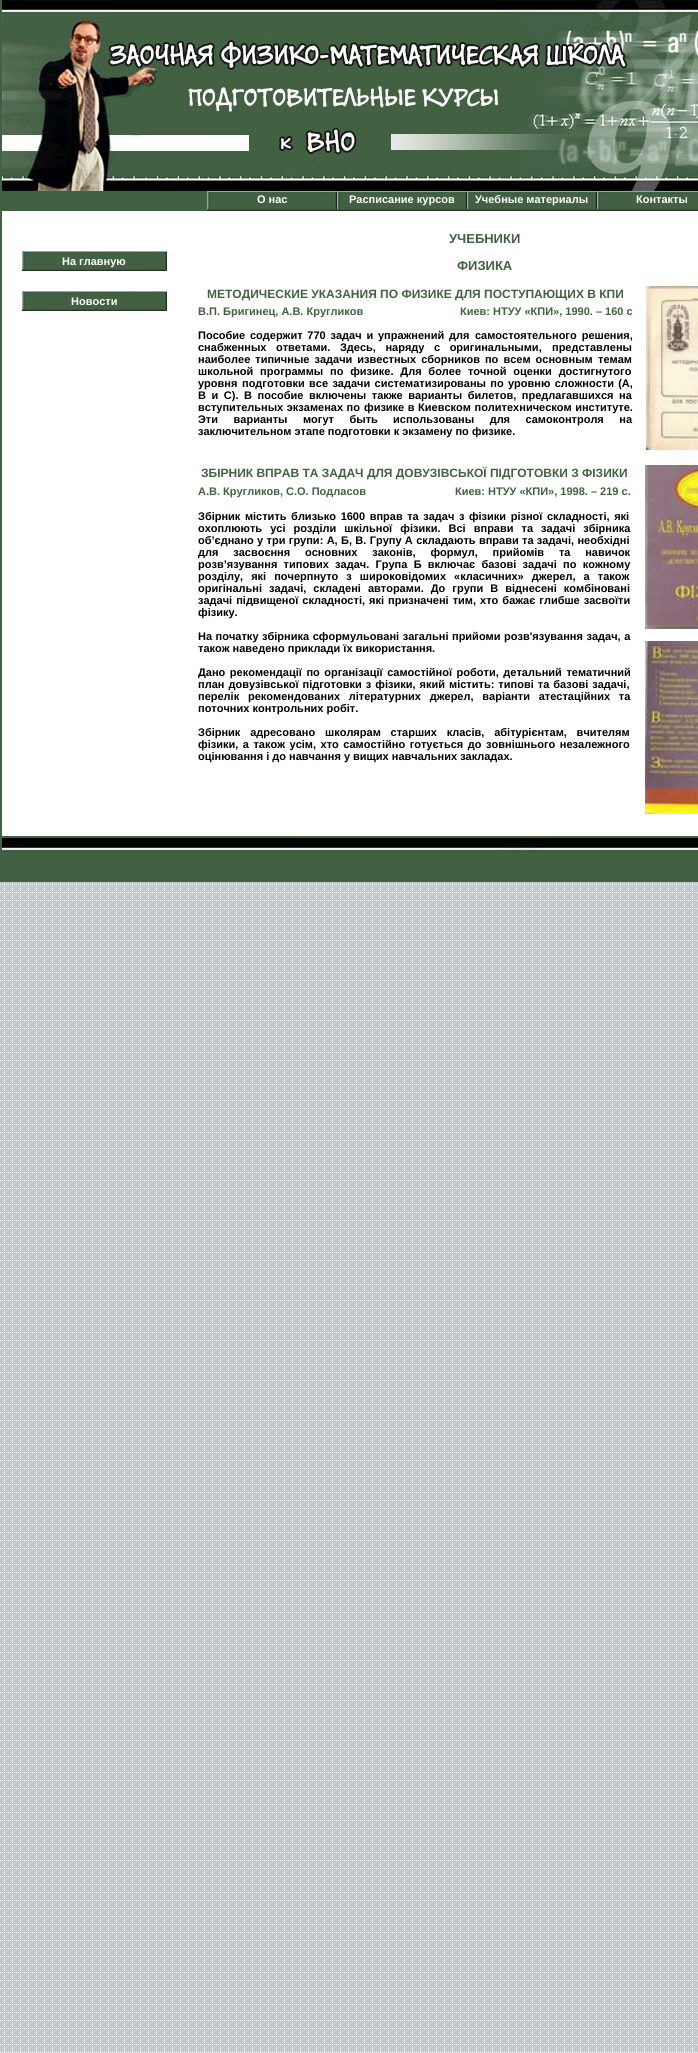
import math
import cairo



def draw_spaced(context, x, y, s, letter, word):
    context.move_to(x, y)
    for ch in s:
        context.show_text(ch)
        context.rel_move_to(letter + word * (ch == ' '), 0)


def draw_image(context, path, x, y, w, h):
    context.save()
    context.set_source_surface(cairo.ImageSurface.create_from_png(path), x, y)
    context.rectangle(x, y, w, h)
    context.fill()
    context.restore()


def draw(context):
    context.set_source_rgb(1, 1, 1)
    context.paint()
    draw_image(context, "images/1.png", 0, 882, 698, 1171)
    context.set_source_rgb(66 / 255, 97 / 255, 66 / 255)
    context.rectangle(0, 0, 2, 836)
    context.fill()
    draw_image(context, "images/2.png", 2, 0, 696, 191)
    context.rectangle(2, 191, 205, 20)
    context.fill()
    draw_image(context, "images/3.png", 207, 191, 130, 20)
    draw_image(context, "images/3.png", 337, 191, 130, 20)
    draw_image(context, "images/3.png", 467, 191, 130, 20)
    draw_image(context, "images/4.png", 597, 191, 101, 20)
    draw_image(context, "images/5.png", 22, 251, 145, 20)
    draw_image(context, "images/5.png", 22, 291, 145, 20)
    draw_image(context, "images/6.png", 646, 286, 52, 164)
    draw_image(context, "images/7.png", 645, 465, 53, 164)
    draw_image(context, "images/8.png", 645, 641, 53, 173)
    context.rectangle(0, 836, 698, 2)
    context.fill()
    context.rectangle(0, 838, 2, 14)
    context.fill()
    draw_image(context, "images/9.png", 2, 838, 696, 14)
    context.rectangle(0, 852, 698, 30)
    context.fill()
    context.select_font_face("Liberation Sans", cairo.FontSlant.NORMAL, cairo.FontWeight.BOLD)
    context.set_font_size(11)
    context.set_source_rgb(1, 1, 1)
    context.move_to(257, 203)
    context.show_text("О нас")
    context.move_to(349, 203)
    context.show_text("Расписание курсов")
    context.move_to(475, 203)
    context.show_text("Учебные материалы")
    context.move_to(636, 203)
    context.show_text("Контакты")
    context.move_to(62, 265)
    context.show_text("На главную")
    context.move_to(71, 305)
    context.show_text("Новости")
    context.set_font_size(13)
    context.set_source_rgb(66 / 255, 97 / 255, 66 / 255)
    context.move_to(449, 243)
    context.show_text("УЧЕБНИКИ")
    context.move_to(457, 270)
    context.show_text("ФИЗИКА")
    context.set_font_size(12)
    context.move_to(207, 298)
    context.show_text("МЕТОДИЧЕСКИЕ УКАЗАНИЯ ПО ФИЗИКЕ ДЛЯ ПОСТУПАЮЩИХ В КПИ")
    context.set_font_size(11)
    context.move_to(198, 315)
    context.show_text("В.П. Бригинец, А.В. Кругликов")
    context.move_to(460, 315)
    context.show_text("Киев: НТУУ «КПИ», 1990. – 160 с")
    context.set_source_rgb(0, 0, 0)
    draw_spaced(context, 198, 339, "Пособие содержит 770 задач и упражнений для", 0, 1.75)
    draw_spaced(context, 475, 339, "самостоятельного решения,", 0, 2)
    draw_spaced(context, 198, 351, "снабженных ответами. Здесь, наряду с оригинальными,", 0, 6.5)
    context.move_to(552, 351)
    context.show_text("представлены")
    draw_spaced(context, 198, 363, "наиболее типичные задачи известных сборников по всем основным", 0, 2)
    context.move_to(598, 363)
    context.show_text("темам")
    draw_spaced(context, 198, 375, "школьной программы по физике. Для более точной оценки достигнутого", 0, 3.75)
    context.move_to(198, 387)
    context.show_text("уровня")
    draw_spaced(context, 242, 387, "подготовки все задачи систематизированы по уровню сложности (А,", 0, 1.25)
    draw_spaced(context, 198, 399, "В и С). В пособие", 0, 2.5)
    draw_spaced(context, 309, 399, "включены также варианты билетов, предлагавшихся на", 0, 2.5)
    draw_spaced(context, 198, 411, "вступительных экзаменах по", 0, 0.5)
    draw_spaced(context, 364, 411, "физике в Киевском политехническом институте.", 0, 0.5)
    draw_spaced(context, 198, 423, "Эти варианты могут быть", 0, 12.5)
    draw_spaced(context, 393, 423, "использованы для самоконтроля на", 0, 12.5)
    context.move_to(198, 435)
    context.show_text("заключительном этапе подготовки к экзамену по физике.")
    context.set_font_size(12)
    context.set_source_rgb(66 / 255, 97 / 255, 66 / 255)
    context.move_to(201, 477)
    context.show_text("ЗБІРНИК ВПРАВ ТА ЗАДАЧ ДЛЯ ДОВУЗІВСЬКОЇ ПІДГОТОВКИ З ФІЗИКИ")
    context.set_font_size(11)
    context.move_to(198, 495)
    context.show_text("А.В. Кругликов, С.О. Подласов")
    context.move_to(455, 495)
    context.show_text("Киев: НТУУ «КПИ», 1998. – 219 с.")
    context.set_source_rgb(0, 0, 0)
    draw_spaced(context, 198, 520, "Збірник містить близько 1600 вправ та задач з фізики різної складності, які", 0, 1.5)
    draw_spaced(context, 198, 532, "охоплюють усі розділи шкільної фізики. Всі вправи та задачі збірника", 0, 5)
    draw_spaced(context, 198, 544, "об’єднано у три групи: А, Б, В. Групу А складають вправи та задачі, необхідні", 0, 0.3)
    draw_spaced(context, 198, 556, "для засвоєння основних законів, формул, прийомів та навичок", 0, 11.75)
    draw_spaced(context, 198, 568, "розв’язування типових задач. Група Б включає базові задачі по кожному", 0, 3.25)
    draw_spaced(context, 198, 580, "розділу, які почерпнуто з широковідомих «класичних» джерел, а також", 0, 5)
    draw_spaced(context, 198, 592, "оригінальні задачі, складені авторами. До групи В віднесені комбіновані", 0, 4)
    draw_spaced(context, 198, 604, "задачі підвищеної складності, які призначені тим, хто бажає глибше засвоїти", 0, 1)
    context.move_to(198, 616)
    context.show_text("фізику.")
    draw_spaced(context, 198, 640, "На початку збірника сформульовані загальні прийоми розв'язування задач, а", 0, 0.5)
    context.move_to(198, 652)
    context.show_text("також наведено приклади їх використання.")
    draw_spaced(context, 198, 676, "Дано рекомендації по організації самостійної роботи, детальний тематичний", 0, 1.5)
    draw_spaced(context, 198, 688, "план довузівської підготовки з фізики, який містить: типові та базові задачі,", 0, 1)
    draw_spaced(context, 198, 700, "перелік рекомендованих літературних джерел, варіанти атестаційних та", 0, 5.75)
    context.move_to(198, 712)
    context.show_text("поточних контрольних робіт.")
    draw_spaced(context, 198, 736, "Збірник адресовано школярам старших класів, абітурієнтам, вчителям", 0, 6.75)
    draw_spaced(context, 198, 748, "фізики, а також усім, хто самостійно готується до зовнішнього незалежного", 0, 1.5)
    context.move_to(198, 760)
    context.show_text("оцінювання і до навчання у вищих навчальних закладах.")


surface = cairo.ImageSurface(cairo.Format.RGB24, 698, 2053)
context = cairo.Context(surface)
options = cairo.FontOptions()
options.set_hint_metrics(cairo.HintMetrics.OFF)
options.set_hint_style(cairo.HintStyle.NONE)
context.set_font_options(options)
context.set_miter_limit(4)
draw(context)
surface.write_to_png("out.png")
